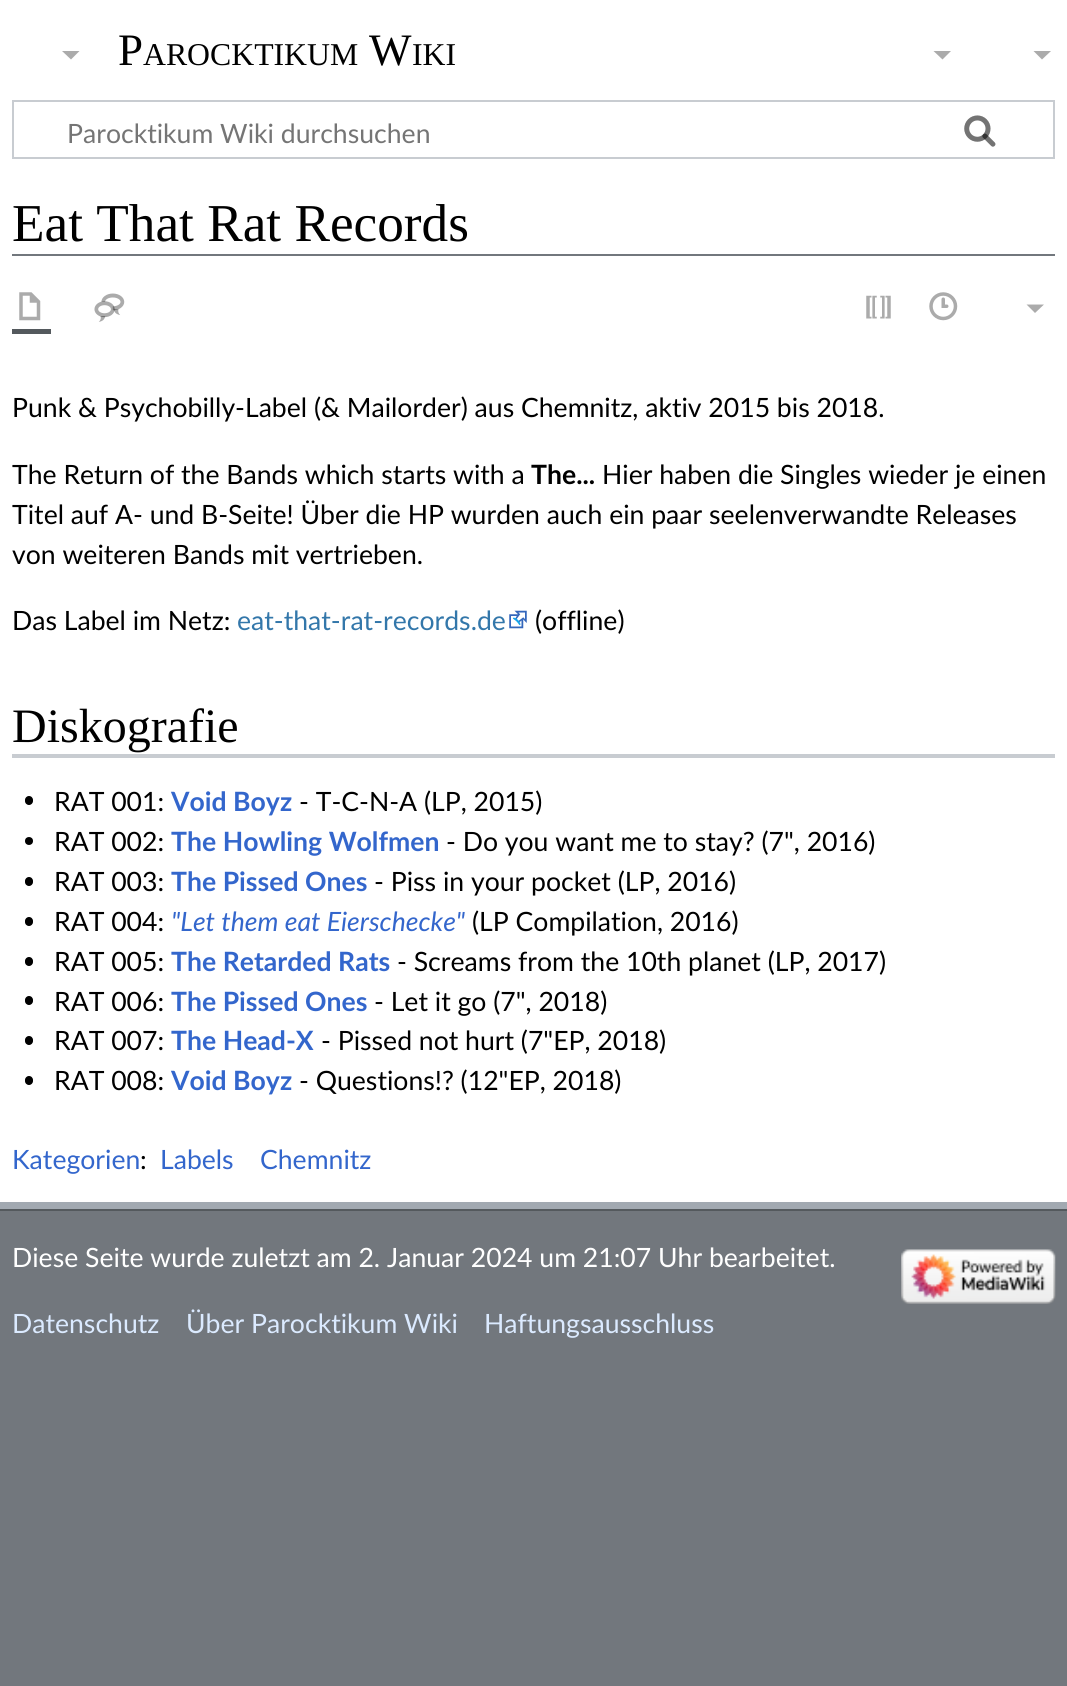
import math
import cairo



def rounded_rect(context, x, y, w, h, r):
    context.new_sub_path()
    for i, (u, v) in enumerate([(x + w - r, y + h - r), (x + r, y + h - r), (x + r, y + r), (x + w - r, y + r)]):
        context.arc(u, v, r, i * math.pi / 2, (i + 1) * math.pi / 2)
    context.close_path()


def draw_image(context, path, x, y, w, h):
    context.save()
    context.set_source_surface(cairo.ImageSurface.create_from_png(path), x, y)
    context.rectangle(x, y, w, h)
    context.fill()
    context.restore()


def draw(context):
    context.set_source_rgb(114 / 255, 119 / 255, 125 / 255)
    context.paint()
    context.set_source_rgb(1, 1, 1)
    context.rectangle(0, 0, 1067, 1202)
    context.fill()
    context.set_source_rgb(171 / 255, 171 / 255, 171 / 255)
    context.new_path()
    context.move_to(1051, 51)
    context.line_to(1042, 59.5)
    context.line_to(1033.5, 51)
    context.close_path()
    context.fill()
    context.rectangle(13, 101, 1041, 57)
    context.set_source_rgb(200 / 255, 204 / 255, 209 / 255)
    context.stroke()
    draw_image(context, "images/1.png", 964, 115, 32, 32)
    draw_image(context, "images/2.png", 964, 115, 32, 32)
    context.set_source_rgb(162 / 255, 169 / 255, 177 / 255)
    context.rectangle(0, 1202, 1067, 7)
    context.fill()
    context.set_source_rgb(171 / 255, 171 / 255, 171 / 255)
    context.new_path()
    context.move_to(79.5, 51)
    context.line_to(71, 59.5)
    context.line_to(62, 51)
    context.close_path()
    context.fill()
    context.new_path()
    context.move_to(951, 51)
    context.line_to(942.5, 59.5)
    context.line_to(933.5, 51)
    context.close_path()
    context.fill()
    context.set_source_rgb(114 / 255, 119 / 255, 125 / 255)
    context.rectangle(12, 254, 1043, 2)
    context.fill()
    context.set_source_rgb(84 / 255, 89 / 255, 93 / 255)
    context.rectangle(12, 329, 39, 5)
    context.fill()
    draw_image(context, "images/3.png", 19, 292, 22, 29)
    draw_image(context, "images/4.png", 94, 293, 31, 29)
    draw_image(context, "images/5.png", 866, 295, 25, 24)
    draw_image(context, "images/6.png", 929, 292, 29, 29)
    context.set_source_rgb(171 / 255, 171 / 255, 171 / 255)
    context.new_path()
    context.move_to(1044, 304.5)
    context.line_to(1035, 313)
    context.line_to(1026.5, 304.5)
    context.close_path()
    context.fill()
    draw_image(context, "images/7.png", 509, 610, 18, 19)
    context.set_source_rgb(200 / 255, 204 / 255, 209 / 255)
    context.rectangle(12, 754, 1043, 4)
    context.fill()
    context.set_source_rgb(0, 0, 0)
    rounded_rect(context, 25, 796, 8, 9, 4)
    context.fill()
    context.arc(29, 841, 4, 0, 2 * math.pi)
    context.fill()
    rounded_rect(context, 25, 877, 8, 9, 4)
    context.fill()
    rounded_rect(context, 25, 917, 8, 9, 4)
    context.fill()
    rounded_rect(context, 25, 957, 8, 9, 4)
    context.fill()
    rounded_rect(context, 25, 996, 8, 9, 4)
    context.fill()
    rounded_rect(context, 25, 1036, 8, 9, 4)
    context.fill()
    rounded_rect(context, 25, 1076, 8, 9, 4)
    context.fill()
    context.set_source_rgb(84 / 255, 89 / 255, 93 / 255)
    context.rectangle(0, 1209, 1067, 2)
    context.fill()
    draw_image(context, "images/8.png", 901, 1249, 155, 55)
    context.select_font_face("Liberation Serif")
    context.set_font_size(45)
    context.set_source_rgb(0, 0, 0)
    context.move_to(118, 65)
    context.show_text("P")
    context.set_font_size(31.75)
    context.move_to(143, 65)
    context.show_text("AROCKTIKUM")
    context.set_font_size(45)
    context.move_to(369, 65)
    context.show_text("W")
    context.set_font_size(31.75)
    context.move_to(412, 65)
    context.show_text("IKI")
    context.select_font_face("Lato")
    context.set_font_size(26.6)
    context.set_source_rgb(117 / 255, 117 / 255, 117 / 255)
    context.move_to(67, 143)
    context.show_text("Parocktikum Wiki durchsuchen")
    context.select_font_face("Liberation Serif")
    context.set_font_size(53.25)
    context.set_source_rgb(0, 0, 0)
    context.move_to(12, 241)
    context.show_text("Eat That Rat Records")
    context.select_font_face("Lato")
    context.set_font_size(26.6)
    context.move_to(12, 417)
    context.show_text("Punk & Psychobilly-Label (& Mailorder) aus Chemnitz, aktiv 2015 bis 2018.")
    context.move_to(12, 484)
    context.show_text("The Return of the Bands which starts with a")
    context.select_font_face("Lato", cairo.FontSlant.NORMAL, cairo.FontWeight.BOLD)
    context.move_to(531, 484)
    context.show_text("The...")
    context.select_font_face("Lato")
    context.move_to(602, 484)
    context.show_text("Hier haben die Singles wieder je einen")
    context.move_to(12, 524)
    context.show_text("Titel auf A- und B-Seite! Über die HP wurden auch ein paar seelenverwandte Releases")
    context.move_to(12, 564)
    context.show_text("von weiteren Bands mit vertrieben.")
    context.move_to(12, 630)
    context.show_text("Das Label im Netz:")
    context.set_source_rgb(51 / 255, 119 / 255, 170 / 255)
    context.move_to(237, 630)
    context.show_text("eat-that-rat-records.de")
    context.set_source_rgb(0, 0, 0)
    context.move_to(535, 630)
    context.show_text("(offline)")
    context.select_font_face("Liberation Serif")
    context.set_font_size(48)
    context.move_to(12, 742)
    context.show_text("Diskografie")
    context.select_font_face("Lato")
    context.set_font_size(26.6)
    context.move_to(54, 811)
    context.show_text("RAT 001:")
    context.select_font_face("Lato", cairo.FontSlant.NORMAL, cairo.FontWeight.BOLD)
    context.set_source_rgb(51 / 255, 102 / 255, 204 / 255)
    context.move_to(171, 811)
    context.show_text("Void Boyz")
    context.select_font_face("Lato")
    context.set_source_rgb(0, 0, 0)
    context.move_to(299, 811)
    context.show_text("- T-C-N-A (LP, 2015)")
    context.move_to(54, 851)
    context.show_text("RAT 002:")
    context.select_font_face("Lato", cairo.FontSlant.NORMAL, cairo.FontWeight.BOLD)
    context.set_source_rgb(51 / 255, 102 / 255, 204 / 255)
    context.move_to(171, 851)
    context.show_text("The Howling Wolfmen")
    context.select_font_face("Lato")
    context.set_source_rgb(0, 0, 0)
    context.move_to(446, 851)
    context.show_text("- Do you want me to stay? (7\", 2016)")
    context.move_to(54, 891)
    context.show_text("RAT 003:")
    context.select_font_face("Lato", cairo.FontSlant.NORMAL, cairo.FontWeight.BOLD)
    context.set_source_rgb(51 / 255, 102 / 255, 204 / 255)
    context.move_to(171, 891)
    context.show_text("The Pissed Ones")
    context.select_font_face("Lato")
    context.set_source_rgb(0, 0, 0)
    context.move_to(374, 891)
    context.show_text("- Piss in your pocket (LP, 2016)")
    context.move_to(54, 931)
    context.show_text("RAT 004:")
    context.select_font_face("Lato", cairo.FontSlant.ITALIC)
    context.set_source_rgb(51 / 255, 102 / 255, 204 / 255)
    context.move_to(171, 931)
    context.show_text("\"Let them eat Eierschecke\"")
    context.select_font_face("Lato")
    context.set_source_rgb(0, 0, 0)
    context.move_to(472, 931)
    context.show_text("(LP Compilation, 2016)")
    context.move_to(54, 971)
    context.show_text("RAT 005:")
    context.select_font_face("Lato", cairo.FontSlant.NORMAL, cairo.FontWeight.BOLD)
    context.set_source_rgb(51 / 255, 102 / 255, 204 / 255)
    context.move_to(171, 971)
    context.show_text("The Retarded Rats")
    context.select_font_face("Lato")
    context.set_source_rgb(0, 0, 0)
    context.move_to(397, 971)
    context.show_text("- Screams from the 10th planet (LP, 2017)")
    context.move_to(54, 1011)
    context.show_text("RAT 006:")
    context.select_font_face("Lato", cairo.FontSlant.NORMAL, cairo.FontWeight.BOLD)
    context.set_source_rgb(51 / 255, 102 / 255, 204 / 255)
    context.move_to(171, 1011)
    context.show_text("The Pissed Ones")
    context.select_font_face("Lato")
    context.set_source_rgb(0, 0, 0)
    context.move_to(374, 1011)
    context.show_text("- Let it go (7\", 2018)")
    context.move_to(54, 1050)
    context.show_text("RAT 007:")
    context.select_font_face("Lato", cairo.FontSlant.NORMAL, cairo.FontWeight.BOLD)
    context.set_source_rgb(51 / 255, 102 / 255, 204 / 255)
    context.move_to(171, 1050)
    context.show_text("The Head-X")
    context.select_font_face("Lato")
    context.set_source_rgb(0, 0, 0)
    context.move_to(321, 1050)
    context.show_text("- Pissed not hurt (7\"EP, 2018)")
    context.move_to(54, 1090)
    context.show_text("RAT 008:")
    context.select_font_face("Lato", cairo.FontSlant.NORMAL, cairo.FontWeight.BOLD)
    context.set_source_rgb(51 / 255, 102 / 255, 204 / 255)
    context.move_to(171, 1090)
    context.show_text("Void Boyz")
    context.select_font_face("Lato")
    context.set_source_rgb(0, 0, 0)
    context.move_to(299, 1090)
    context.show_text("- Questions!? (12\"EP, 2018)")
    context.set_source_rgb(51 / 255, 102 / 255, 204 / 255)
    context.move_to(12, 1169)
    context.show_text("Kategorien")
    context.set_source_rgb(0, 0, 0)
    context.move_to(140, 1169)
    context.show_text(":")
    context.set_source_rgb(51 / 255, 102 / 255, 204 / 255)
    context.move_to(160, 1169)
    context.show_text("Labels")
    context.move_to(260, 1169)
    context.show_text("Chemnitz")
    context.set_source_rgb(1, 1, 1)
    context.move_to(12, 1267)
    context.show_text("Diese Seite wurde zuletzt am 2. Januar 2024 um 21:07 Uhr bearbeitet.")
    context.set_source_rgb(219 / 255, 234 / 255, 1)
    context.move_to(12, 1333)
    context.show_text("Datenschutz")
    context.move_to(186, 1333)
    context.show_text("Über Parocktikum Wiki")
    context.move_to(484, 1333)
    context.show_text("Haftungsausschluss")


surface = cairo.ImageSurface(cairo.Format.RGB24, 1067, 1686)
context = cairo.Context(surface)
options = cairo.FontOptions()
options.set_hint_metrics(cairo.HintMetrics.OFF)
options.set_hint_style(cairo.HintStyle.NONE)
context.set_font_options(options)
context.set_miter_limit(4)
draw(context)
surface.write_to_png("out.png")
